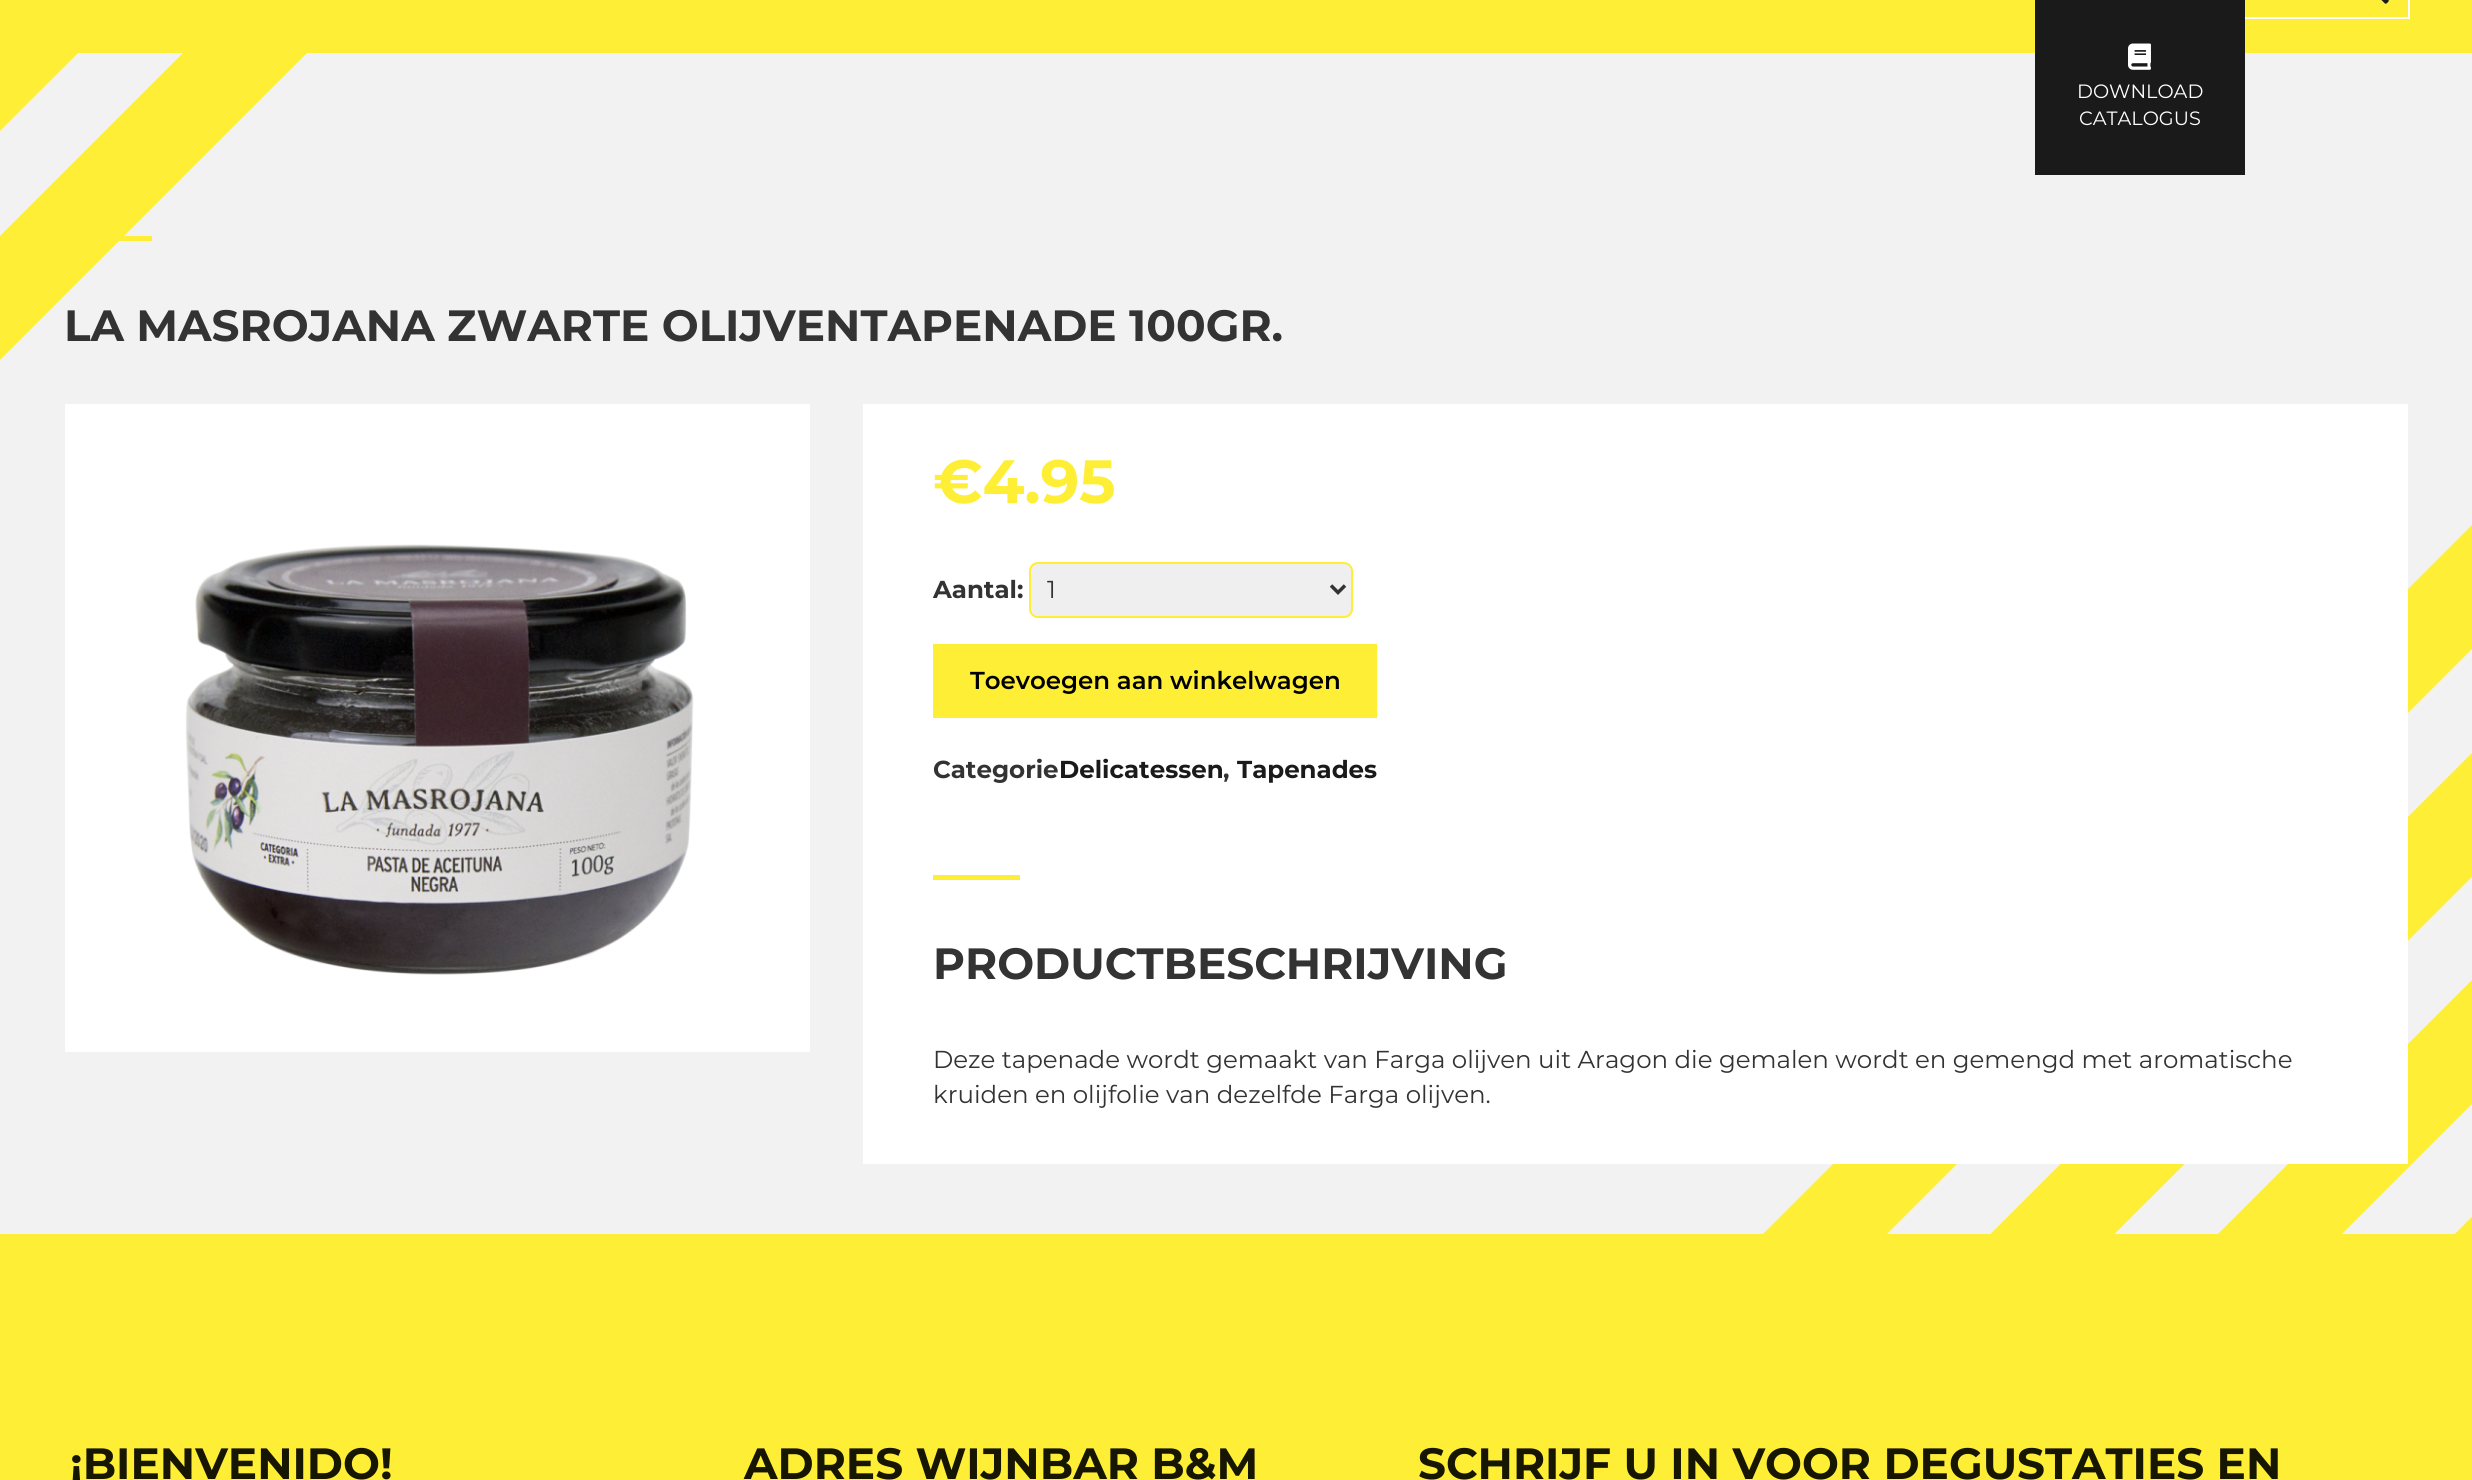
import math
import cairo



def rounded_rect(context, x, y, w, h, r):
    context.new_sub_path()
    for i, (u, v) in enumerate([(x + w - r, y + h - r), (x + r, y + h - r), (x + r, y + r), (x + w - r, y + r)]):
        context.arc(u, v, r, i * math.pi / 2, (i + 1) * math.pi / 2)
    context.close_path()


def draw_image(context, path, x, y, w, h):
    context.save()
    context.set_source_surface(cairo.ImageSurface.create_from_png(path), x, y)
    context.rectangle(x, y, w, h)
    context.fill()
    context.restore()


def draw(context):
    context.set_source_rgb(242 / 255, 242 / 255, 242 / 255)
    context.paint()
    context.set_source_rgb(254 / 255, 238 / 255, 53 / 255)
    context.rectangle(0, 0, 2472, 53)
    context.fill()
    context.set_source_rgb(254 / 255, 238 / 255, 54 / 255)
    context.new_path()
    context.move_to(-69, 78)
    context.line_to(970, -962)
    context.line_to(1032, -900)
    context.line_to(-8, 139)
    context.close_path()
    context.fill()
    context.new_path()
    context.move_to(-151, 387)
    context.line_to(1507, -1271)
    context.line_to(1569, -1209)
    context.line_to(-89, 449)
    context.close_path()
    context.fill()
    context.rectangle(2045, -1, 364, 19)
    context.set_source_rgb(1, 1, 1)
    context.stroke()
    draw_image(context, "images/1.png", 2381, 0, 8, 4)
    context.set_source_rgb(26 / 255, 26 / 255, 26 / 255)
    context.rectangle(2035, 0, 210, 175)
    context.fill()
    draw_image(context, "images/2.png", 2128, 43, 23, 27)
    context.set_source_rgb(254 / 255, 238 / 255, 53 / 255)
    context.rectangle(119, 236, 33, 5)
    context.fill()
    context.set_source_rgb(1, 1, 1)
    context.rectangle(65, 404, 745, 648)
    context.fill()
    draw_image(context, "images/3.png", 185, 544, 509, 431)
    context.set_source_rgb(254 / 255, 238 / 255, 54 / 255)
    context.new_path()
    context.move_to(2438, 1251)
    context.line_to(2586, 1102)
    context.line_to(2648, 1164)
    context.line_to(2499, 1313)
    context.close_path()
    context.fill()
    context.new_path()
    context.move_to(1991, 1461)
    context.line_to(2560, 892)
    context.line_to(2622, 954)
    context.line_to(2053, 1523)
    context.close_path()
    context.fill()
    context.new_path()
    context.move_to(1528, 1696)
    context.line_to(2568, 657)
    context.line_to(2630, 719)
    context.line_to(1590, 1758)
    context.close_path()
    context.fill()
    context.new_path()
    context.move_to(991, 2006)
    context.line_to(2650, 347)
    context.line_to(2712, 409)
    context.line_to(1053, 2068)
    context.close_path()
    context.fill()
    context.set_source_rgb(1, 1, 1)
    context.rectangle(863, 404, 1545, 760)
    context.fill()
    context.set_source_rgb(239 / 255, 239 / 255, 239 / 255)
    rounded_rect(context, 1030, 563, 322, 54, 8)
    context.fill_preserve()
    context.set_source_rgb(254 / 255, 238 / 255, 53 / 255)
    context.stroke()
    context.new_path()
    context.move_to(1331, 585.5)
    context.line_to(1338, 592.5)
    context.line_to(1345, 585.5)
    context.set_source_rgb(51 / 255, 51 / 255, 51 / 255)
    context.set_line_width(3.5)
    context.stroke()
    context.set_source_rgb(254 / 255, 238 / 255, 53 / 255)
    context.rectangle(933, 644, 444, 74)
    context.fill()
    context.rectangle(933, 875, 87, 5)
    context.fill()
    context.rectangle(0, 1234, 2472, 246)
    context.fill()
    context.select_font_face("Montserrat")
    context.set_font_size(19.25)
    context.set_source_rgb(1, 1, 1)
    context.move_to(2077, 98)
    context.show_text("DOWNLOAD")
    context.move_to(2079, 125)
    context.show_text("CATALOGUS")
    context.select_font_face("Montserrat", cairo.FontSlant.NORMAL, cairo.FontWeight.BOLD)
    context.set_font_size(43.75)
    context.set_source_rgb(51 / 255, 51 / 255, 51 / 255)
    context.move_to(64, 341)
    context.show_text("LA MASROJANA ZWARTE OLIJVENTAPENADE 100GR.")
    context.set_font_size(61)
    context.set_source_rgb(254 / 255, 238 / 255, 53 / 255)
    context.move_to(933, 503)
    context.show_text("€4.95")
    context.set_font_size(24.5)
    context.set_source_rgb(51 / 255, 51 / 255, 51 / 255)
    context.move_to(933, 598)
    context.show_text("Aantal:")
    context.select_font_face("Montserrat")
    context.move_to(1047, 598)
    context.show_text("1")
    context.select_font_face("Montserrat SemiBold")
    context.set_source_rgb(0, 0, 0)
    context.move_to(970, 689)
    context.show_text("Toevoegen aan winkelwagen")
    context.select_font_face("Montserrat", cairo.FontSlant.NORMAL, cairo.FontWeight.BOLD)
    context.set_source_rgb(51 / 255, 51 / 255, 51 / 255)
    context.move_to(933, 778)
    context.show_text("Categorie")
    context.set_source_rgb(26 / 255, 26 / 255, 26 / 255)
    context.move_to(1059, 778)
    context.show_text("Delicatessen")
    context.set_source_rgb(51 / 255, 51 / 255, 51 / 255)
    context.move_to(1223, 778)
    context.show_text(",")
    context.set_source_rgb(26 / 255, 26 / 255, 26 / 255)
    context.move_to(1237, 778)
    context.show_text("Tapenades")
    context.set_font_size(43.75)
    context.set_source_rgb(51 / 255, 51 / 255, 51 / 255)
    context.move_to(933, 979)
    context.show_text("PRODUCTBESCHRIJVING")
    context.select_font_face("Montserrat")
    context.set_font_size(24.5)
    context.move_to(933, 1068)
    context.show_text("Deze tapenade wordt gemaakt van Farga olijven uit Aragon die gemalen wordt en gemengd met aromatische")
    context.move_to(933, 1103)
    context.show_text("kruiden en olijfolie van dezelfde Farga olijven.")
    context.select_font_face("Montserrat", cairo.FontSlant.NORMAL, cairo.FontWeight.BOLD)
    context.set_font_size(43.75)
    context.set_source_rgb(23 / 255, 22 / 255, 3 / 255)
    context.move_to(70, 1479)
    context.show_text("¡BIENVENIDO!")
    context.move_to(744, 1479)
    context.show_text("ADRES WIJNBAR B&M")
    context.move_to(1418, 1479)
    context.show_text("SCHRIJF U IN VOOR DEGUSTATIES EN")


surface = cairo.ImageSurface(cairo.Format.RGB24, 2472, 1480)
context = cairo.Context(surface)
options = cairo.FontOptions()
options.set_hint_metrics(cairo.HintMetrics.OFF)
options.set_hint_style(cairo.HintStyle.NONE)
context.set_font_options(options)
context.set_miter_limit(4)
draw(context)
surface.write_to_png("out.png")
